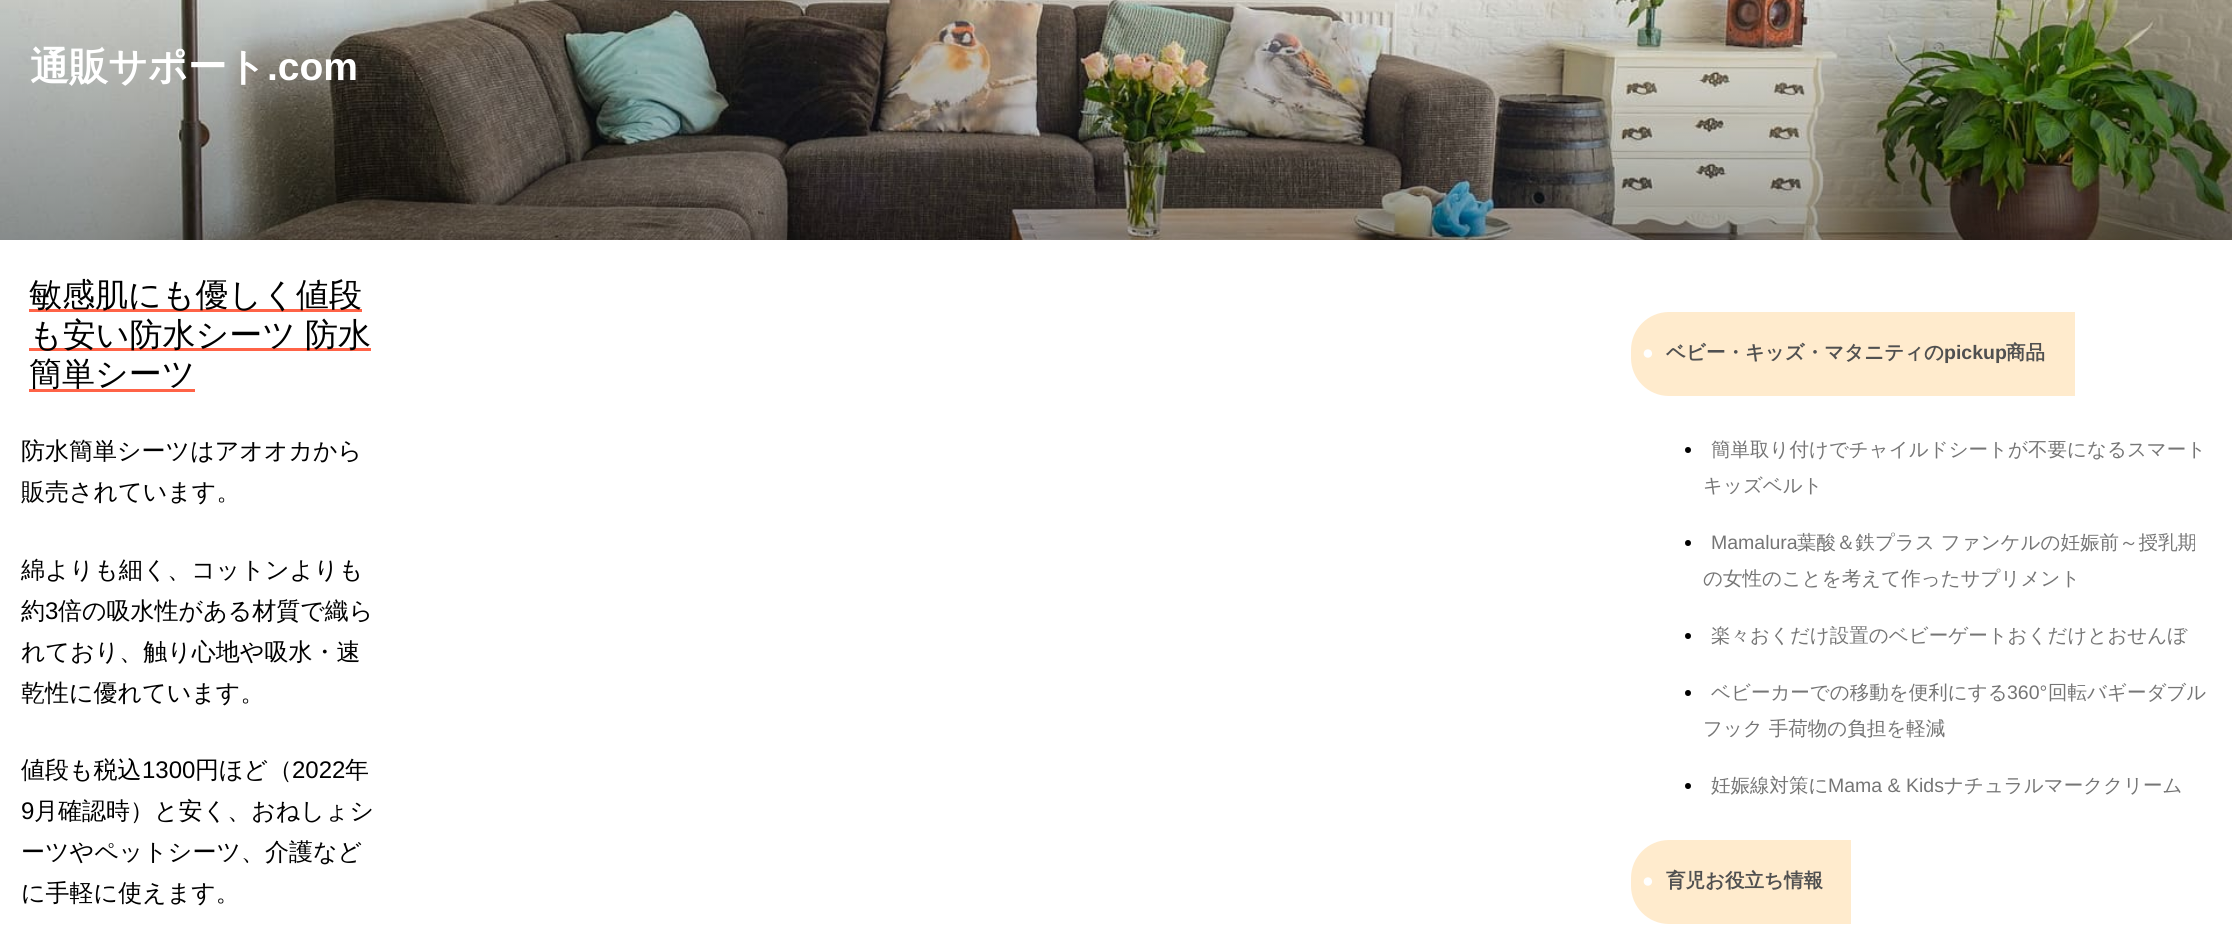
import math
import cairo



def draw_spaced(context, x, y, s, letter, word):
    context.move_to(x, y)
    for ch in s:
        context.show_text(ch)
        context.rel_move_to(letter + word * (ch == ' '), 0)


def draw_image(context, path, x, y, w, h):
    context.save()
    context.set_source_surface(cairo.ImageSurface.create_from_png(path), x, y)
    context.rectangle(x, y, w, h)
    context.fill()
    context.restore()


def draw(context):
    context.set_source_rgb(1, 1, 1)
    context.paint()
    draw_image(context, "images/1.png", 0, 0, 2232, 240)
    context.set_source_rgb(1, 99 / 255, 71 / 255)
    context.rectangle(29, 309, 333, 3)
    context.fill()
    context.rectangle(29, 348, 342, 3)
    context.fill()
    context.rectangle(29, 389, 166, 3)
    context.fill()
    context.set_source_rgb(1, 235 / 255, 205 / 255)
    context.new_path()
    context.move_to(1669, 312)
    context.line_to(2075, 312)
    context.line_to(2075, 396)
    context.line_to(1669, 396)
    context.curve_to(1648, 396, 1631, 379, 1631, 358)
    context.line_to(1631, 350)
    context.curve_to(1631, 329, 1648, 312, 1669, 312)
    context.close_path()
    context.fill()
    context.set_source_rgb(0, 0, 0)
    context.arc(1688, 450, 3, 0, 2 * math.pi)
    context.fill()
    context.arc(1688, 543, 3, 0, 2 * math.pi)
    context.fill()
    context.arc(1688, 636, 3, 0, 2 * math.pi)
    context.fill()
    context.arc(1688, 693, 3, 0, 2 * math.pi)
    context.fill()
    context.arc(1688, 786, 3, 0, 2 * math.pi)
    context.fill()
    context.set_source_rgb(1, 235 / 255, 205 / 255)
    context.new_path()
    context.move_to(1669, 840)
    context.line_to(1851, 840)
    context.line_to(1851, 924)
    context.line_to(1669, 924)
    context.curve_to(1648, 924, 1631, 907, 1631, 886)
    context.line_to(1631, 878)
    context.curve_to(1631, 857, 1648, 840, 1669, 840)
    context.close_path()
    context.fill()
    context.select_font_face("WenQuanYi Zen Hei", cairo.FontSlant.NORMAL, cairo.FontWeight.BOLD)
    context.set_font_size(39)
    context.set_source_rgb(1, 1, 1)
    context.move_to(30, 80)
    context.show_text("通販サポート")
    context.select_font_face("Liberation Sans", cairo.FontSlant.NORMAL, cairo.FontWeight.BOLD)
    context.move_to(267, 80)
    context.show_text(".com")
    context.select_font_face("WenQuanYi Zen Hei Medium")
    context.set_font_size(33)
    context.set_source_rgb(0, 0, 0)
    context.move_to(29, 306)
    context.show_text("敏感肌にも優しく値段")
    draw_spaced(context, 29, 346, "も安い防水シーツ 防水", 0, -1)
    context.move_to(29, 385)
    context.show_text("簡単シーツ")
    context.set_font_size(24)
    context.move_to(21, 459)
    context.show_text("防水簡単シーツはアオオカから")
    context.move_to(21, 500)
    context.show_text("販売されています。")
    context.move_to(21, 578)
    context.show_text("綿よりも細く、コットンよりも")
    context.move_to(21, 619)
    context.show_text("約")
    context.select_font_face("Liberation Sans")
    context.move_to(45, 619)
    context.show_text("3")
    context.select_font_face("WenQuanYi Zen Hei Medium")
    context.move_to(58, 619)
    context.show_text("倍の吸水性がある材質で織ら")
    context.move_to(21, 660)
    context.show_text("れており、触り心地や吸水・速")
    context.move_to(21, 701)
    context.show_text("乾性に優れています。")
    context.move_to(21, 778)
    context.show_text("値段も税込")
    context.select_font_face("Liberation Sans")
    context.move_to(142, 778)
    context.show_text("1300")
    context.select_font_face("WenQuanYi Zen Hei Medium")
    context.move_to(195, 778)
    context.show_text("円ほど（")
    context.select_font_face("Liberation Sans")
    context.move_to(292, 778)
    context.show_text("2022")
    context.select_font_face("WenQuanYi Zen Hei Medium")
    context.move_to(345, 778)
    context.show_text("年")
    context.select_font_face("Liberation Sans")
    context.move_to(21, 819)
    context.show_text("9")
    context.select_font_face("WenQuanYi Zen Hei Medium")
    context.move_to(34, 819)
    context.show_text("月確認時）と安く、おねしょシ")
    context.move_to(21, 860)
    context.show_text("ーツやペットシーツ、介護など")
    context.move_to(21, 901)
    context.show_text("に手軽に使えます。")
    context.select_font_face("Liberation Sans", cairo.FontSlant.NORMAL, cairo.FontWeight.BOLD)
    context.set_font_size(19.5)
    context.set_source_rgb(1, 1, 1)
    context.move_to(1642, 359)
    context.show_text("●")
    context.select_font_face("WenQuanYi Zen Hei", cairo.FontSlant.NORMAL, cairo.FontWeight.BOLD)
    context.set_source_rgb(80 / 255, 80 / 255, 80 / 255)
    context.move_to(1666, 359)
    context.show_text("ベビー・キッズ・マタニティの")
    context.select_font_face("Liberation Sans", cairo.FontSlant.NORMAL, cairo.FontWeight.BOLD)
    context.move_to(1944, 359)
    context.show_text("pickup")
    context.select_font_face("WenQuanYi Zen Hei", cairo.FontSlant.NORMAL, cairo.FontWeight.BOLD)
    context.move_to(2006, 359)
    context.show_text("商品")
    context.select_font_face("WenQuanYi Zen Hei Medium")
    context.set_source_rgb(117 / 255, 117 / 255, 117 / 255)
    context.move_to(1711, 456)
    context.show_text("簡単取り付けでチャイルドシートが不要になるスマート")
    context.move_to(1703, 492)
    context.show_text("キッズベルト")
    context.select_font_face("Liberation Sans")
    context.move_to(1711, 549)
    context.show_text("Mamalura")
    context.select_font_face("WenQuanYi Zen Hei Medium")
    context.move_to(1797, 549)
    context.show_text("葉酸＆鉄プラス ファンケルの妊娠前～授乳期")
    context.move_to(1703, 585)
    context.show_text("の女性のことを考えて作ったサプリメント")
    context.move_to(1711, 642)
    context.show_text("楽々おくだけ設置のベビーゲートおくだけとおせんぼ")
    context.move_to(1711, 699)
    context.show_text("ベビーカーでの移動を便利にする")
    context.select_font_face("Liberation Sans")
    context.move_to(2007, 699)
    context.show_text("360°")
    context.select_font_face("WenQuanYi Zen Hei Medium")
    context.move_to(2048, 699)
    context.show_text("回転バギーダブル")
    context.move_to(1703, 735)
    context.show_text("フック 手荷物の負担を軽減")
    context.move_to(1711, 792)
    context.show_text("妊娠線対策に")
    context.select_font_face("Liberation Sans")
    context.move_to(1828, 792)
    context.show_text("Mama & Kids")
    context.select_font_face("WenQuanYi Zen Hei Medium")
    context.move_to(1944, 792)
    context.show_text("ナチュラルマーククリーム")
    context.select_font_face("Liberation Sans", cairo.FontSlant.NORMAL, cairo.FontWeight.BOLD)
    context.set_source_rgb(1, 1, 1)
    context.move_to(1642, 887)
    context.show_text("●")
    context.select_font_face("WenQuanYi Zen Hei", cairo.FontSlant.NORMAL, cairo.FontWeight.BOLD)
    context.set_source_rgb(80 / 255, 80 / 255, 80 / 255)
    context.move_to(1666, 887)
    context.show_text("育児お役立ち情報")


surface = cairo.ImageSurface(cairo.Format.RGB24, 2232, 926)
context = cairo.Context(surface)
options = cairo.FontOptions()
options.set_hint_metrics(cairo.HintMetrics.OFF)
options.set_hint_style(cairo.HintStyle.NONE)
context.set_font_options(options)
context.set_miter_limit(4)
draw(context)
surface.write_to_png("out.png")
